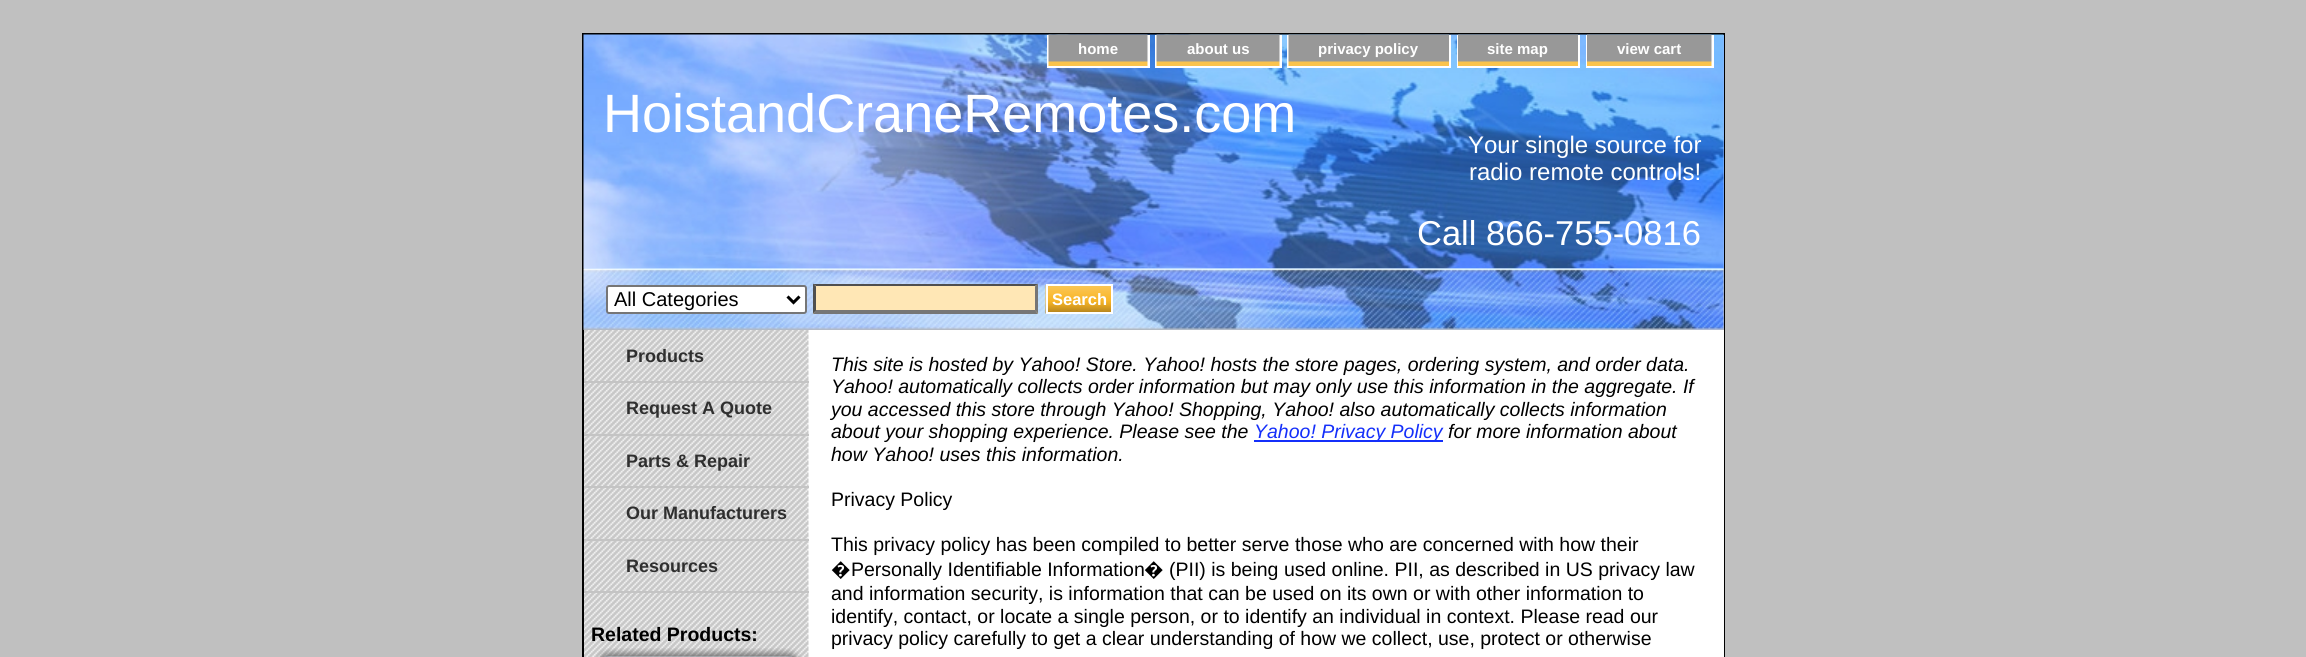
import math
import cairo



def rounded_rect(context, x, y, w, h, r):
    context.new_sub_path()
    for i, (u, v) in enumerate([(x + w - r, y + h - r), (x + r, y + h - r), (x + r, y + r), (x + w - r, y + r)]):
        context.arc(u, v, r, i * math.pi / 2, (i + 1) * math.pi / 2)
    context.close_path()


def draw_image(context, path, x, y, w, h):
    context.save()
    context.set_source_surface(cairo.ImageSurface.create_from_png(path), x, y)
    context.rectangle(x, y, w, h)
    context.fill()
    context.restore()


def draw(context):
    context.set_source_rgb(192 / 255, 192 / 255, 192 / 255)
    context.paint()
    context.set_source_rgb(1, 1, 1)
    context.rectangle(808, 330, 1, 327)
    context.fill()
    draw_image(context, "images/1.png", 584, 330, 225, 327)
    context.rectangle(583, 34, 1141, 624)
    context.set_source_rgb(0, 0, 0)
    context.stroke()
    context.set_source_rgb(147 / 255, 187 / 255, 1)
    context.rectangle(584, 35, 1140, 234)
    context.fill()
    draw_image(context, "images/2.png", 583, 34, 1141, 235)
    context.set_source_rgb(1, 1, 1)
    context.rectangle(1148, 35, 2, 33)
    context.fill()
    context.rectangle(1047, 66, 102, 2)
    context.fill()
    context.rectangle(1047, 35, 2, 33)
    context.fill()
    context.rectangle(1147, 35, 1, 31)
    context.fill()
    draw_image(context, "images/3.png", 1048, 34, 100, 32)
    context.rectangle(1280, 35, 2, 33)
    context.fill()
    context.rectangle(1155, 66, 126, 2)
    context.fill()
    context.rectangle(1155, 35, 2, 33)
    context.fill()
    context.rectangle(1279, 35, 1, 31)
    context.fill()
    draw_image(context, "images/4.png", 1156, 34, 124, 32)
    context.rectangle(1449, 35, 2, 33)
    context.fill()
    context.rectangle(1287, 66, 164, 2)
    context.fill()
    context.rectangle(1287, 35, 2, 33)
    context.fill()
    draw_image(context, "images/5.png", 1288, 34, 161, 32)
    context.rectangle(1578, 35, 2, 33)
    context.fill()
    context.rectangle(1457, 66, 123, 2)
    context.fill()
    context.rectangle(1457, 35, 2, 33)
    context.fill()
    draw_image(context, "images/6.png", 1458, 34, 120, 32)
    context.rectangle(1712, 35, 2, 33)
    context.fill()
    context.rectangle(1586, 66, 127, 2)
    context.fill()
    context.rectangle(1586, 35, 2, 33)
    context.fill()
    context.rectangle(1711, 35, 1, 31)
    context.fill()
    draw_image(context, "images/7.png", 1587, 34, 125, 32)
    context.set_source_rgb(197 / 255, 197 / 255, 197 / 255)
    context.rectangle(1723, 269, 1, 61)
    context.fill()
    draw_image(context, "images/8.png", 583, 268, 1141, 62)
    context.set_source_rgb(1, 1, 1)
    rounded_rect(context, 607, 286, 199, 27, 2)
    context.fill_preserve()
    context.set_source_rgb(118 / 255, 118 / 255, 118 / 255)
    context.stroke()
    context.new_path()
    context.move_to(787.5, 296.5)
    context.line_to(793.5, 302.5)
    context.line_to(799.5, 296.5)
    context.set_source_rgb(0, 0, 0)
    context.set_line_width(3)
    context.stroke()
    context.set_source_rgb(1, 231 / 255, 181 / 255)
    context.rectangle(813, 284, 225, 30)
    context.fill()
    context.set_source_rgb(79 / 255, 79 / 255, 79 / 255)
    context.new_path()
    context.move_to(813, 284)
    context.line_to(1038, 284)
    context.line_to(1035, 286)
    context.line_to(816, 286)
    context.close_path()
    context.fill()
    context.set_source_rgb(118 / 255, 118 / 255, 118 / 255)
    context.new_path()
    context.move_to(1038, 283.5)
    context.line_to(1038, 313.5)
    context.line_to(1035, 310.5)
    context.line_to(1035, 286.5)
    context.close_path()
    context.fill()
    context.new_path()
    context.move_to(1038, 314)
    context.line_to(813, 314)
    context.line_to(816, 310)
    context.line_to(1035, 310)
    context.close_path()
    context.fill()
    context.set_source_rgb(79 / 255, 79 / 255, 79 / 255)
    context.new_path()
    context.move_to(813, 313.5)
    context.line_to(813, 283.5)
    context.line_to(816, 286.5)
    context.line_to(816, 310.5)
    context.close_path()
    context.fill()
    draw_image(context, "images/9.png", 1045, 285, 66, 29)
    context.rectangle(1047, 285, 65, 28)
    context.set_source_rgb(1, 1, 1)
    context.set_line_width(2)
    context.stroke()
    context.set_source_rgb(196 / 255, 196 / 255, 196 / 255)
    context.rectangle(584, 381, 225, 2)
    context.fill()
    context.rectangle(584, 434, 225, 2)
    context.fill()
    context.rectangle(584, 486, 225, 2)
    context.fill()
    context.rectangle(584, 539, 225, 2)
    context.fill()
    context.rectangle(584, 591, 225, 2)
    context.fill()
    draw_image(context, "images/10.png", 596, 648, 205, 9)
    context.set_source_rgb(1, 1, 1)
    context.rectangle(809, 330, 915, 327)
    context.fill()
    context.set_source_rgb(20 / 255, 47 / 255, 250 / 255)
    context.rectangle(1254, 440, 189, 2)
    context.fill()
    context.select_font_face("Liberation Sans", cairo.FontSlant.NORMAL, cairo.FontWeight.BOLD)
    context.set_font_size(15)
    context.set_source_rgb(1, 1, 1)
    context.move_to(1078, 54)
    context.show_text("home")
    context.move_to(1187, 54)
    context.show_text("about us")
    context.move_to(1318, 54)
    context.show_text("privacy policy")
    context.move_to(1487, 54)
    context.show_text("site map")
    context.move_to(1617, 54)
    context.show_text("view cart")
    context.select_font_face("Liberation Sans")
    context.set_font_size(54)
    context.move_to(603, 132)
    context.show_text("HoistandCraneRemotes.com")
    context.set_font_size(24)
    context.move_to(1468, 153)
    context.show_text("Your single source for")
    context.move_to(1469, 180)
    context.show_text("radio remote controls!")
    context.set_font_size(34.5)
    context.move_to(1417, 245)
    context.show_text("Call 866-755-0816")
    context.set_font_size(20)
    context.set_source_rgb(0, 0, 0)
    context.move_to(614, 306)
    context.show_text("All Categories")
    context.select_font_face("Liberation Sans", cairo.FontSlant.NORMAL, cairo.FontWeight.BOLD)
    context.set_font_size(16.5)
    context.set_source_rgb(1, 1, 1)
    context.move_to(1052, 305)
    context.show_text("Search")
    context.set_font_size(18)
    context.set_source_rgb(47 / 255, 47 / 255, 47 / 255)
    context.move_to(626, 362)
    context.show_text("Products")
    context.move_to(626, 414)
    context.show_text("Request A Quote")
    context.move_to(626, 467)
    context.show_text("Parts & Repair")
    context.move_to(626, 519)
    context.show_text("Our Manufacturers")
    context.move_to(626, 572)
    context.show_text("Resources")
    context.set_font_size(19.5)
    context.set_source_rgb(0, 0, 0)
    context.move_to(591, 641)
    context.show_text("Related Products:")
    context.select_font_face("Liberation Sans", cairo.FontSlant.ITALIC)
    context.move_to(831, 371)
    context.show_text("This site is hosted by Yahoo! Store. Yahoo! hosts the store pages, ordering system, and order data.")
    context.move_to(831, 393)
    context.show_text("Yahoo! automatically collects order information but may only use this information in the aggregate. If")
    context.move_to(831, 416)
    context.show_text("you accessed this store through Yahoo! Shopping, Yahoo! also automatically collects information")
    context.move_to(831, 438)
    context.show_text("about your shopping experience. Please see the")
    context.set_source_rgb(20 / 255, 47 / 255, 250 / 255)
    context.move_to(1254, 438)
    context.show_text("Yahoo! Privacy Policy")
    context.set_source_rgb(0, 0, 0)
    context.move_to(1448, 438)
    context.show_text("for more information about")
    context.move_to(831, 461)
    context.show_text("how Yahoo! uses this information.")
    context.select_font_face("Liberation Sans")
    context.move_to(831, 506)
    context.show_text("Privacy Policy")
    context.move_to(831, 551)
    context.show_text("This privacy policy has been compiled to better serve those who are concerned with how their")
    context.select_font_face("Noto Sans")
    context.move_to(831, 576)
    context.show_text("�")
    context.select_font_face("Liberation Sans")
    context.move_to(851, 576)
    context.show_text("Personally Identifiable Information")
    context.select_font_face("Noto Sans")
    context.move_to(1144, 576)
    context.show_text("�")
    context.select_font_face("Liberation Sans")
    context.move_to(1169, 576)
    context.show_text("(PII) is being used online. PII, as described in US privacy law")
    context.move_to(831, 600)
    context.show_text("and information security, is information that can be used on its own or with other information to")
    context.move_to(831, 623)
    context.show_text("identify, contact, or locate a single person, or to identify an individual in context. Please read our")
    context.move_to(831, 645)
    context.show_text("privacy policy carefully to get a clear understanding of how we collect, use, protect or otherwise")


surface = cairo.ImageSurface(cairo.Format.RGB24, 2306, 657)
context = cairo.Context(surface)
options = cairo.FontOptions()
options.set_hint_metrics(cairo.HintMetrics.OFF)
options.set_hint_style(cairo.HintStyle.NONE)
context.set_font_options(options)
context.set_miter_limit(4)
draw(context)
surface.write_to_png("out.png")
